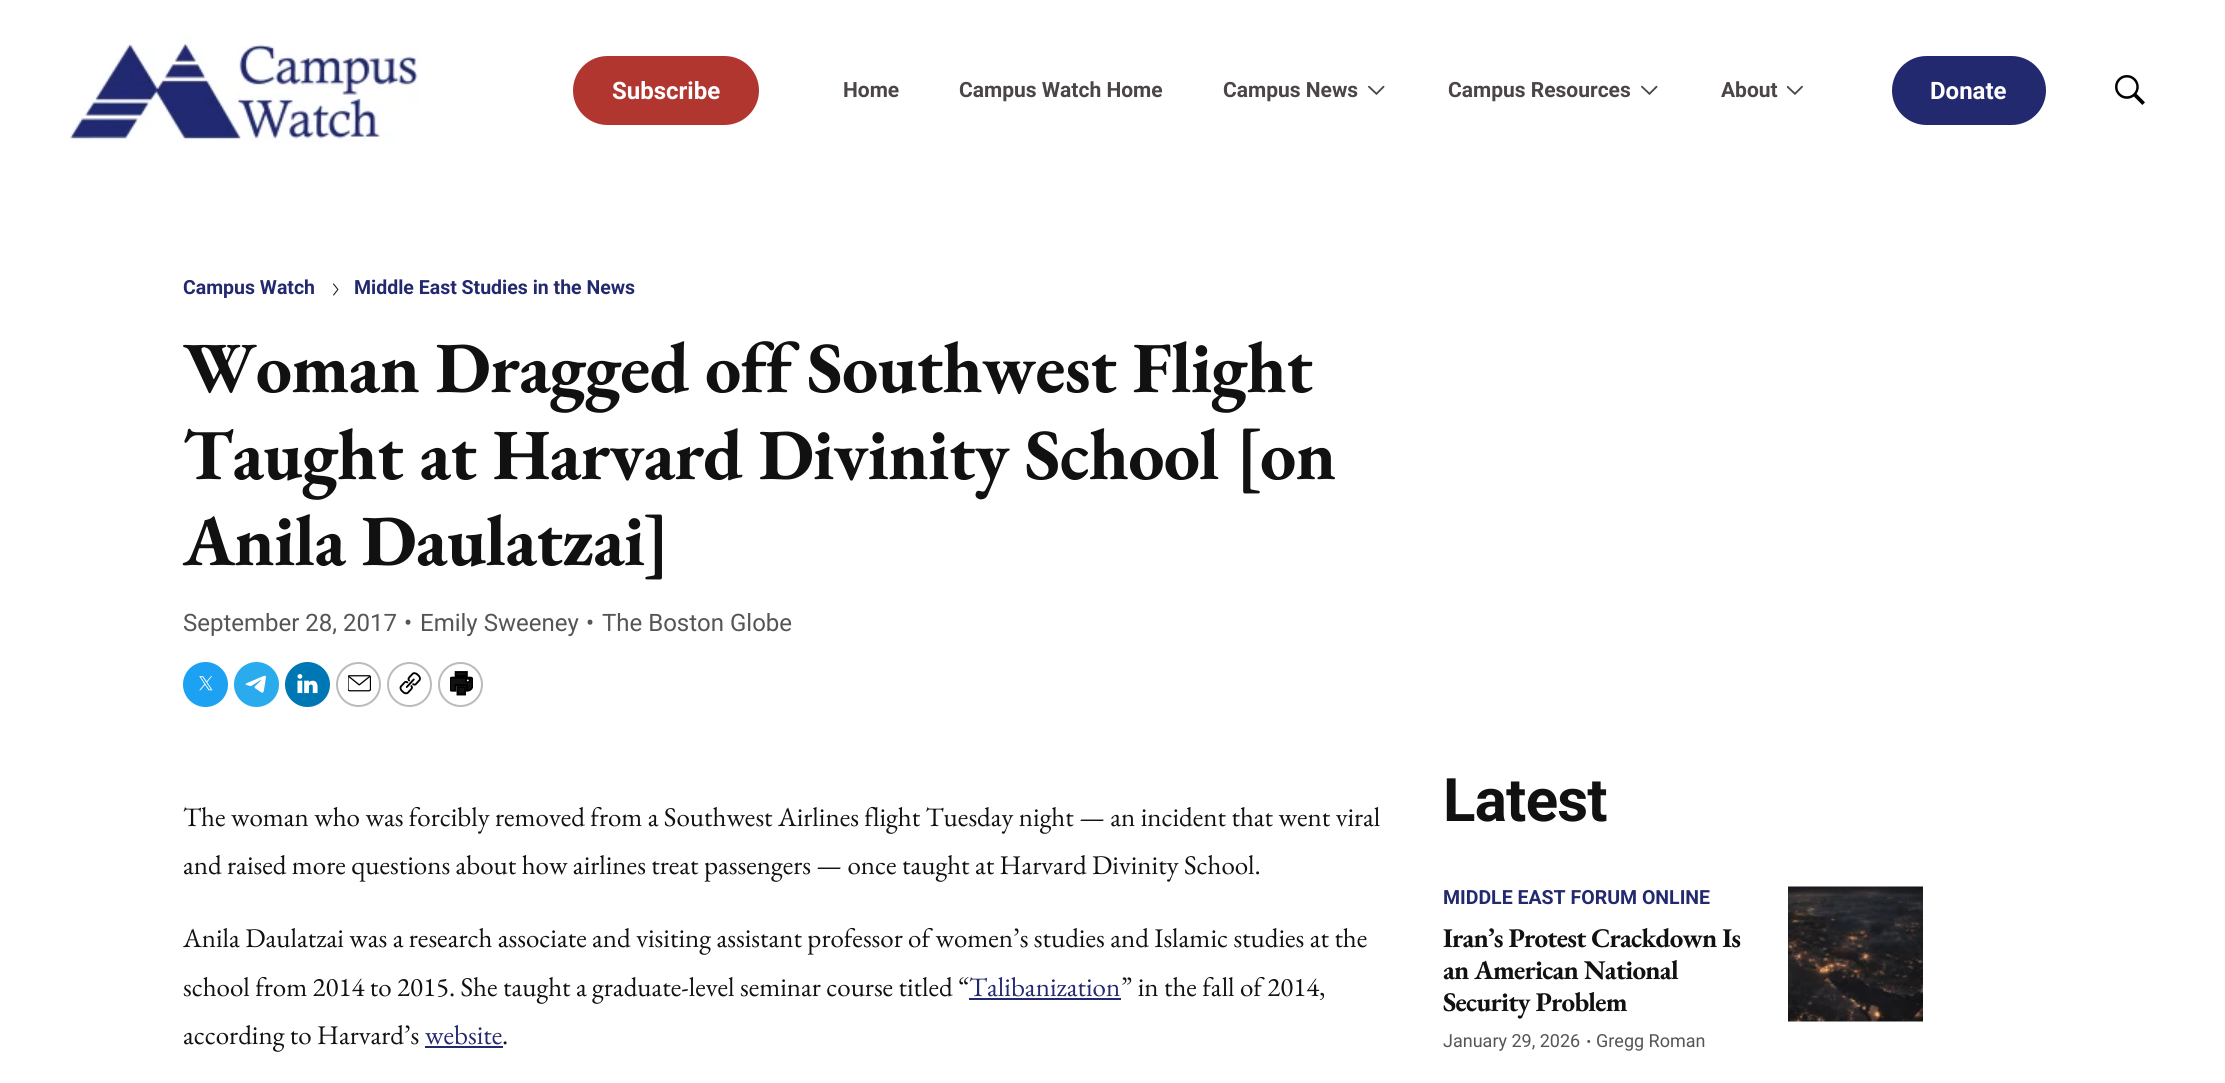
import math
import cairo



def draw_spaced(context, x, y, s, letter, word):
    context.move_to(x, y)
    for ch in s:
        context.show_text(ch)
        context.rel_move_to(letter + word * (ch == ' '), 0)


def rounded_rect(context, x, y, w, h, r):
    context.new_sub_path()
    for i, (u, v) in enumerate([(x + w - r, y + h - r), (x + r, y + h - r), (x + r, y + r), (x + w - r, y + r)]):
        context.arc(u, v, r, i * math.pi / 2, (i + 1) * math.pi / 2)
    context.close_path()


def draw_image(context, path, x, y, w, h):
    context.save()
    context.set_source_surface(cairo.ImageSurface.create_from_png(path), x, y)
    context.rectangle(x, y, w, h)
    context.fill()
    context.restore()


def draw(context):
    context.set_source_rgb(1, 1, 1)
    context.paint()
    draw_image(context, "images/1.png", 70, 34, 350, 108)
    context.set_source_rgb(177 / 255, 54 / 255, 48 / 255)
    rounded_rect(context, 574, 57, 184, 67, 33.5)
    context.fill_preserve()
    context.stroke()
    draw_image(context, "images/2.png", 1368, 85, 17, 10)
    draw_image(context, "images/2.png", 1641, 85, 17, 10)
    draw_image(context, "images/3.png", 1787, 85, 16, 10)
    context.set_source_rgb(35 / 255, 41 / 255, 110 / 255)
    rounded_rect(context, 1893, 57, 152, 67, 33.5)
    context.fill_preserve()
    context.stroke()
    draw_image(context, "images/4.png", 2115, 75, 30, 30)
    draw_image(context, "images/5.png", 333, 283, 6, 13)
    context.set_source_rgb(29 / 255, 161 / 255, 242 / 255)
    context.arc(205.5, 684.5, 22.5, 0, 2 * math.pi)
    context.fill()
    draw_image(context, "images/6.png", 199, 676, 14, 15)
    context.set_source_rgb(42 / 255, 171 / 255, 238 / 255)
    context.arc(256.5, 684.5, 22.5, 0, 2 * math.pi)
    context.fill()
    draw_image(context, "images/7.png", 245, 675, 21, 18)
    context.set_source_rgb(0, 119 / 255, 181 / 255)
    context.arc(307.5, 684.5, 22.5, 0, 2 * math.pi)
    context.fill()
    draw_image(context, "images/8.png", 297, 674, 21, 20)
    context.arc(358.5, 684.5, 21.5, 0, 2 * math.pi)
    context.set_source_rgb(187 / 255, 187 / 255, 187 / 255)
    context.stroke()
    draw_image(context, "images/9.png", 348, 675, 23, 17)
    context.arc(409.5, 684.5, 21.5, 0, 2 * math.pi)
    context.stroke()
    draw_image(context, "images/10.png", 399, 672, 22, 23)
    context.arc(460.5, 684.5, 21.5, 0, 2 * math.pi)
    context.stroke()
    draw_image(context, "images/11.png", 450, 671, 23, 25)
    context.set_source_rgb(35 / 255, 41 / 255, 110 / 255)
    context.rectangle(969, 998, 152, 2)
    context.fill()
    context.rectangle(425, 1046, 78, 2)
    context.fill()
    draw_image(context, "images/12.png", 1788, 886, 135, 136)
    context.select_font_face("Roboto", cairo.FontSlant.NORMAL, cairo.FontWeight.BOLD)
    context.set_font_size(24)
    context.set_source_rgb(1, 1, 1)
    context.move_to(612, 99)
    context.show_text("Subscribe")
    context.set_font_size(21)
    context.set_source_rgb(75 / 255, 69 / 255, 69 / 255)
    context.move_to(843, 97)
    context.show_text("Home")
    context.move_to(959, 97)
    context.show_text("Campus Watch Home")
    context.move_to(1223, 97)
    context.show_text("Campus News")
    context.move_to(1448, 97)
    context.show_text("Campus Resources")
    context.move_to(1721, 97)
    context.show_text("About")
    context.set_font_size(24)
    context.set_source_rgb(1, 1, 1)
    context.move_to(1930, 99)
    context.show_text("Donate")
    context.set_font_size(19.5)
    context.set_source_rgb(35 / 255, 41 / 255, 110 / 255)
    context.move_to(183, 294)
    context.show_text("Campus Watch")
    context.move_to(354, 294)
    context.show_text("Middle East Studies in the News")
    context.select_font_face("EB Garamond", cairo.FontSlant.NORMAL, cairo.FontWeight.BOLD)
    context.set_font_size(72)
    context.set_source_rgb(17 / 255, 17 / 255, 17 / 255)
    draw_spaced(context, 183, 392, "Woman Dragged off Southwest Flight", -0.75, 0)
    draw_spaced(context, 183, 479, "Taught at Harvard Divinity School [on", -0.75, 0)
    draw_spaced(context, 183, 565, "Anila Daulatzai]", -0.75, 0)
    context.select_font_face("Roboto")
    context.set_font_size(24)
    context.set_source_rgb(85 / 255, 85 / 255, 85 / 255)
    context.move_to(183, 631)
    context.show_text("September 28, 2017")
    context.move_to(404, 631)
    context.show_text("•")
    context.move_to(420, 631)
    context.show_text("Emily Sweeney")
    context.move_to(586, 631)
    context.show_text("•")
    context.move_to(602, 631)
    context.show_text("The Boston Globe")
    context.select_font_face("EB Garamond")
    context.set_font_size(27)
    context.set_source_rgb(17 / 255, 17 / 255, 17 / 255)
    context.move_to(183, 826)
    context.show_text("The woman who was forcibly removed from a Southwest Airlines flight Tuesday night — an incident that went viral")
    context.move_to(183, 874)
    context.show_text("and raised more questions about how airlines treat passengers — once taught at Harvard Divinity School.")
    context.move_to(183, 947)
    context.show_text("Anila Daulatzai was a research associate and visiting assistant professor of women’s studies and Islamic studies at the")
    context.move_to(183, 996)
    context.show_text("school from 2014 to 2015. She taught a graduate-level seminar course titled “")
    context.set_source_rgb(35 / 255, 41 / 255, 110 / 255)
    context.move_to(969, 996)
    context.show_text("Talibanization")
    context.set_source_rgb(17 / 255, 17 / 255, 17 / 255)
    context.move_to(1121, 996)
    context.show_text("” in the fall of 2014,")
    context.move_to(183, 1044)
    context.show_text("according to Harvard’s")
    context.set_source_rgb(35 / 255, 41 / 255, 110 / 255)
    context.move_to(425, 1044)
    context.show_text("website")
    context.set_source_rgb(17 / 255, 17 / 255, 17 / 255)
    context.move_to(502, 1044)
    context.show_text(".")
    context.select_font_face("Roboto", cairo.FontSlant.NORMAL, cairo.FontWeight.BOLD)
    context.set_font_size(60)
    draw_spaced(context, 1443, 821, "Latest", -0.75, 0)
    context.set_font_size(19.5)
    context.set_source_rgb(35 / 255, 41 / 255, 110 / 255)
    context.move_to(1443, 904)
    context.show_text("MIDDLE EAST FORUM ONLINE")
    context.select_font_face("EB Garamond", cairo.FontSlant.NORMAL, cairo.FontWeight.BOLD)
    context.set_font_size(27)
    context.set_source_rgb(17 / 255, 17 / 255, 17 / 255)
    draw_spaced(context, 1443, 947, "Iran’s Protest Crackdown Is", -0.75, 0)
    draw_spaced(context, 1443, 979, "an American National", -0.75, 0)
    draw_spaced(context, 1443, 1011, "Security Problem", -0.75, 0)
    context.select_font_face("Roboto")
    context.set_font_size(18)
    context.set_source_rgb(85 / 255, 85 / 255, 85 / 255)
    context.move_to(1443, 1047)
    context.show_text("January 29, 2026")
    context.select_font_face("EB Garamond")
    context.set_font_size(27)
    context.move_to(1586, 1047)
    context.show_text("·")
    context.select_font_face("Roboto")
    context.set_font_size(18)
    context.move_to(1596, 1047)
    context.show_text("Gregg Roman")


surface = cairo.ImageSurface(cairo.Format.RGB24, 2225, 1083)
context = cairo.Context(surface)
options = cairo.FontOptions()
options.set_hint_metrics(cairo.HintMetrics.OFF)
options.set_hint_style(cairo.HintStyle.NONE)
context.set_font_options(options)
context.set_miter_limit(4)
draw(context)
surface.write_to_png("out.png")
